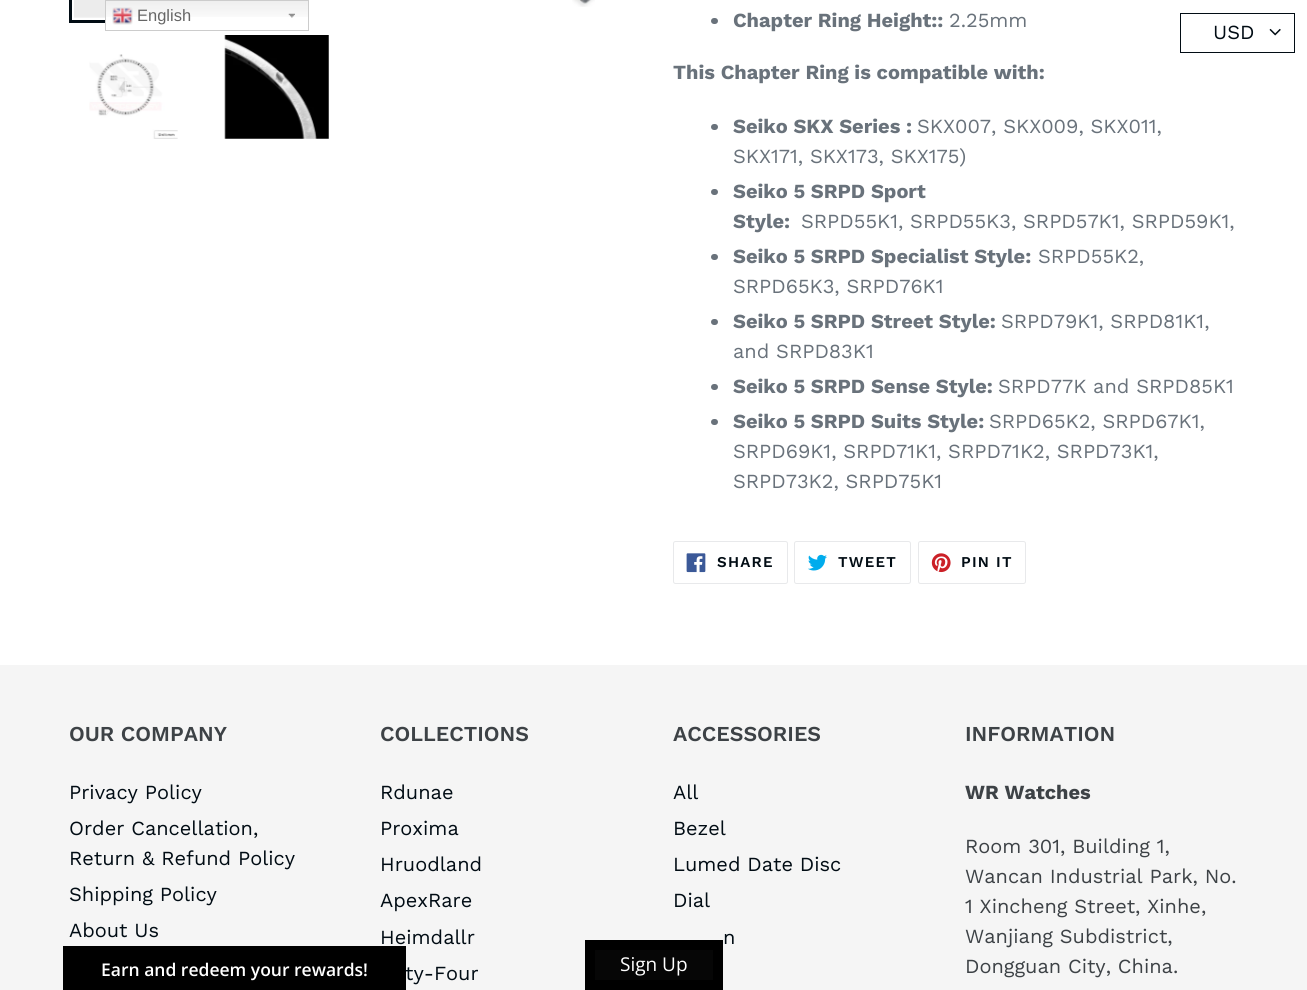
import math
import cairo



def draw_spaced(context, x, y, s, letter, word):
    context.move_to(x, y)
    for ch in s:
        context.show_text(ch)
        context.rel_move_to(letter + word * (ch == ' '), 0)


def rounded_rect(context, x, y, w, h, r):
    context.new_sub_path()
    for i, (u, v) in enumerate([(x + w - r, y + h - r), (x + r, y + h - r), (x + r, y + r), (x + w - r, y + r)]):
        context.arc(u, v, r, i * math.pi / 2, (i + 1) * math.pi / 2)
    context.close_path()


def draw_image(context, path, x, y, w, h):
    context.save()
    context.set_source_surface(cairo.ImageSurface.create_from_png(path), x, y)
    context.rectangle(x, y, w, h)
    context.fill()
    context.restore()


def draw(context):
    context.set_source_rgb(1, 1, 1)
    context.paint()
    context.rectangle(70.5, -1.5, 111, 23)
    context.set_source_rgb(1 / 255, 12 / 255, 20 / 255)
    context.set_line_width(3)
    context.stroke()
    context.set_source_rgb(1, 1, 1)
    context.rectangle(106, 17, 77, 6)
    context.fill()
    draw_image(context, "images/1.png", 106, 1, 202, 16)
    draw_image(context, "images/2.png", 288, 13, 7, 5)
    context.rectangle(105.5, 0.5, 203, 30)
    context.set_source_rgb(204 / 255, 204 / 255, 204 / 255)
    context.set_line_width(1)
    context.stroke()
    draw_image(context, "images/3.png", 112, 7, 21, 18)
    draw_image(context, "images/4.png", 74, 0, 31, 18)
    draw_image(context, "images/5.png", 572, 0, 23, 7)
    draw_image(context, "images/6.png", 89, 54, 89, 85)
    draw_image(context, "images/7.png", 224, 35, 105, 104)
    context.set_source_rgb(105 / 255, 114 / 255, 123 / 255)
    rounded_rect(context, 711, 18, 7, 6, 3)
    context.fill()
    rounded_rect(context, 711, 124, 7, 6, 3)
    context.fill()
    rounded_rect(context, 711, 189, 7, 6, 3)
    context.fill()
    rounded_rect(context, 711, 254, 7, 6, 3)
    context.fill()
    rounded_rect(context, 711, 319, 7, 6, 3)
    context.fill()
    rounded_rect(context, 711, 384, 7, 6, 3)
    context.fill()
    rounded_rect(context, 711, 419, 7, 6, 3)
    context.fill()
    rounded_rect(context, 673.5, 541.5, 114, 42, 2)
    context.set_source_rgb(232 / 255, 233 / 255, 235 / 255)
    context.stroke()
    draw_image(context, "images/8.png", 686, 553, 20, 20)
    rounded_rect(context, 794.5, 541.5, 116, 42, 2)
    context.stroke()
    draw_image(context, "images/9.png", 808, 554, 19, 17)
    rounded_rect(context, 918.5, 541.5, 107, 42, 2)
    context.stroke()
    draw_image(context, "images/10.png", 931, 553, 20, 20)
    context.set_source_rgb(245 / 255, 245 / 255, 245 / 255)
    context.rectangle(0, 665, 1307, 325)
    context.fill()
    context.rectangle(1180.5, 13.5, 114, 39)
    context.set_source_rgb(1 / 255, 12 / 255, 20 / 255)
    context.stroke()
    draw_image(context, "images/11.png", 1269, 28, 12, 8)
    context.set_source_rgb(0, 0, 0)
    context.rectangle(63, 946, 343, 44)
    context.fill()
    context.set_source_rgb(6 / 255, 6 / 255, 6 / 255)
    context.rectangle(590, 945, 128, 40)
    context.fill_preserve()
    context.set_source_rgb(0, 0, 0)
    context.set_line_width(10)
    context.stroke()
    context.select_font_face("Liberation Sans")
    context.set_font_size(16.5)
    context.set_source_rgb(102 / 255, 102 / 255, 102 / 255)
    context.move_to(137, 21)
    context.show_text("English")
    context.select_font_face("Work Sans", cairo.FontSlant.NORMAL, cairo.FontWeight.BOLD)
    context.set_font_size(20)
    context.set_source_rgb(105 / 255, 114 / 255, 123 / 255)
    context.move_to(733, 27)
    context.show_text("Chapter Ring Height::")
    context.select_font_face("Work Sans")
    context.move_to(949, 27)
    context.show_text("2.25mm")
    context.select_font_face("Work Sans", cairo.FontSlant.NORMAL, cairo.FontWeight.BOLD)
    context.move_to(673, 79)
    context.show_text("This Chapter Ring is compatible with:")
    context.move_to(733, 133)
    context.show_text("Seiko SKX Series :")
    context.select_font_face("Work Sans")
    context.move_to(917, 133)
    context.show_text("SKX007, SKX009, SKX011,")
    context.move_to(733, 163)
    context.show_text("SKX171, SKX173, SKX175)")
    context.select_font_face("Work Sans", cairo.FontSlant.NORMAL, cairo.FontWeight.BOLD)
    context.move_to(733, 198)
    context.show_text("Seiko 5 SRPD Sport")
    context.move_to(733, 228)
    context.show_text("Style:")
    context.select_font_face("Work Sans")
    context.move_to(801, 228)
    context.show_text("SRPD55K1, SRPD55K3, SRPD57K1, SRPD59K1,")
    context.select_font_face("Work Sans", cairo.FontSlant.NORMAL, cairo.FontWeight.BOLD)
    context.move_to(733, 263)
    context.show_text("Seiko 5 SRPD Specialist Style:")
    context.select_font_face("Work Sans")
    context.move_to(1038, 263)
    context.show_text("SRPD55K2,")
    context.move_to(733, 293)
    context.show_text("SRPD65K3, SRPD76K1")
    context.select_font_face("Work Sans", cairo.FontSlant.NORMAL, cairo.FontWeight.BOLD)
    context.move_to(733, 328)
    context.show_text("Seiko 5 SRPD Street Style:")
    context.select_font_face("Work Sans")
    context.move_to(1001, 328)
    context.show_text("SRPD79K1, SRPD81K1,")
    context.move_to(733, 358)
    context.show_text("and SRPD83K1")
    context.select_font_face("Work Sans", cairo.FontSlant.NORMAL, cairo.FontWeight.BOLD)
    context.move_to(733, 393)
    context.show_text("Seiko 5 SRPD Sense Style:")
    context.select_font_face("Work Sans")
    context.move_to(998, 393)
    context.show_text("SRPD77K and SRPD85K1")
    context.select_font_face("Work Sans", cairo.FontSlant.NORMAL, cairo.FontWeight.BOLD)
    context.move_to(733, 428)
    context.show_text("Seiko 5 SRPD Suits Style:")
    context.select_font_face("Work Sans")
    context.move_to(989, 428)
    context.show_text("SRPD65K2, SRPD67K1,")
    context.move_to(733, 458)
    context.show_text("SRPD69K1, SRPD71K1, SRPD71K2, SRPD73K1,")
    context.move_to(733, 488)
    context.show_text("SRPD73K2, SRPD75K1")
    context.select_font_face("Work Sans SemiBold")
    context.set_font_size(15)
    context.set_source_rgb(1 / 255, 12 / 255, 20 / 255)
    draw_spaced(context, 717, 567, "SHARE", 1.25, 0)
    draw_spaced(context, 838, 567, "TWEET", 1.25, 0)
    draw_spaced(context, 961, 567, "PIN IT", 1.25, 0)
    context.set_font_size(21.25)
    context.set_source_rgb(61 / 255, 66 / 255, 70 / 255)
    context.move_to(69, 741)
    context.show_text("OUR COMPANY")
    context.select_font_face("Work Sans")
    context.set_font_size(20)
    context.set_source_rgb(1 / 255, 12 / 255, 20 / 255)
    context.move_to(69, 799)
    context.show_text("Privacy Policy")
    context.move_to(69, 835)
    context.show_text("Order Cancellation,")
    context.move_to(69, 865)
    context.show_text("Return & Refund Policy")
    context.move_to(69, 901)
    context.show_text("Shipping Policy")
    context.move_to(69, 937)
    context.show_text("About Us")
    context.select_font_face("Work Sans SemiBold")
    context.set_font_size(21.25)
    context.set_source_rgb(61 / 255, 66 / 255, 70 / 255)
    context.move_to(380, 741)
    context.show_text("COLLECTIONS")
    context.select_font_face("Work Sans")
    context.set_font_size(20)
    context.set_source_rgb(1 / 255, 12 / 255, 20 / 255)
    context.move_to(380, 799)
    context.show_text("Rdunae")
    context.move_to(380, 835)
    context.show_text("Proxima")
    context.move_to(380, 871)
    context.show_text("Hruodland")
    context.move_to(380, 907)
    context.show_text("ApexRare")
    context.move_to(380, 944)
    context.show_text("Heimdallr")
    context.move_to(405, 980)
    context.show_text("ty-Four")
    context.select_font_face("Work Sans SemiBold")
    context.set_font_size(21.25)
    context.set_source_rgb(61 / 255, 66 / 255, 70 / 255)
    context.move_to(673, 741)
    context.show_text("ACCESSORIES")
    context.select_font_face("Work Sans")
    context.set_font_size(20)
    context.set_source_rgb(1 / 255, 12 / 255, 20 / 255)
    context.move_to(673, 799)
    context.show_text("All")
    context.move_to(673, 835)
    context.show_text("Bezel")
    context.move_to(673, 871)
    context.show_text("Lumed Date Disc")
    context.move_to(673, 907)
    context.show_text("Dial")
    context.move_to(723, 944)
    context.show_text("n")
    context.select_font_face("Work Sans SemiBold")
    context.set_font_size(21.25)
    context.set_source_rgb(61 / 255, 66 / 255, 70 / 255)
    context.move_to(965, 741)
    context.show_text("INFORMATION")
    context.select_font_face("Work Sans", cairo.FontSlant.NORMAL, cairo.FontWeight.BOLD)
    context.set_font_size(20)
    context.move_to(965, 799)
    context.show_text("WR Watches")
    context.select_font_face("Work Sans")
    context.move_to(965, 853)
    context.show_text("Room 301, Building 1,")
    context.move_to(965, 883)
    context.show_text("Wancan Industrial Park, No.")
    context.move_to(965, 913)
    context.show_text("1 Xincheng Street, Xinhe,")
    context.move_to(965, 943)
    context.show_text("Wanjiang Subdistrict,")
    context.move_to(965, 973)
    context.show_text("Dongguan City, China.")
    context.set_source_rgb(1 / 255, 12 / 255, 20 / 255)
    context.move_to(1213, 39)
    context.show_text("USD")
    context.select_font_face("Open Sans SemiBold")
    context.set_font_size(17.5)
    context.set_source_rgb(1, 1, 1)
    context.move_to(101, 976)
    context.show_text("Earn and redeem your rewards!")
    context.select_font_face("Open Sans")
    context.set_font_size(19)
    context.move_to(620, 971)
    context.show_text("Sign Up")


surface = cairo.ImageSurface(cairo.Format.RGB24, 1307, 990)
context = cairo.Context(surface)
options = cairo.FontOptions()
options.set_hint_metrics(cairo.HintMetrics.OFF)
options.set_hint_style(cairo.HintStyle.NONE)
context.set_font_options(options)
context.set_miter_limit(4)
draw(context)
surface.write_to_png("out.png")
